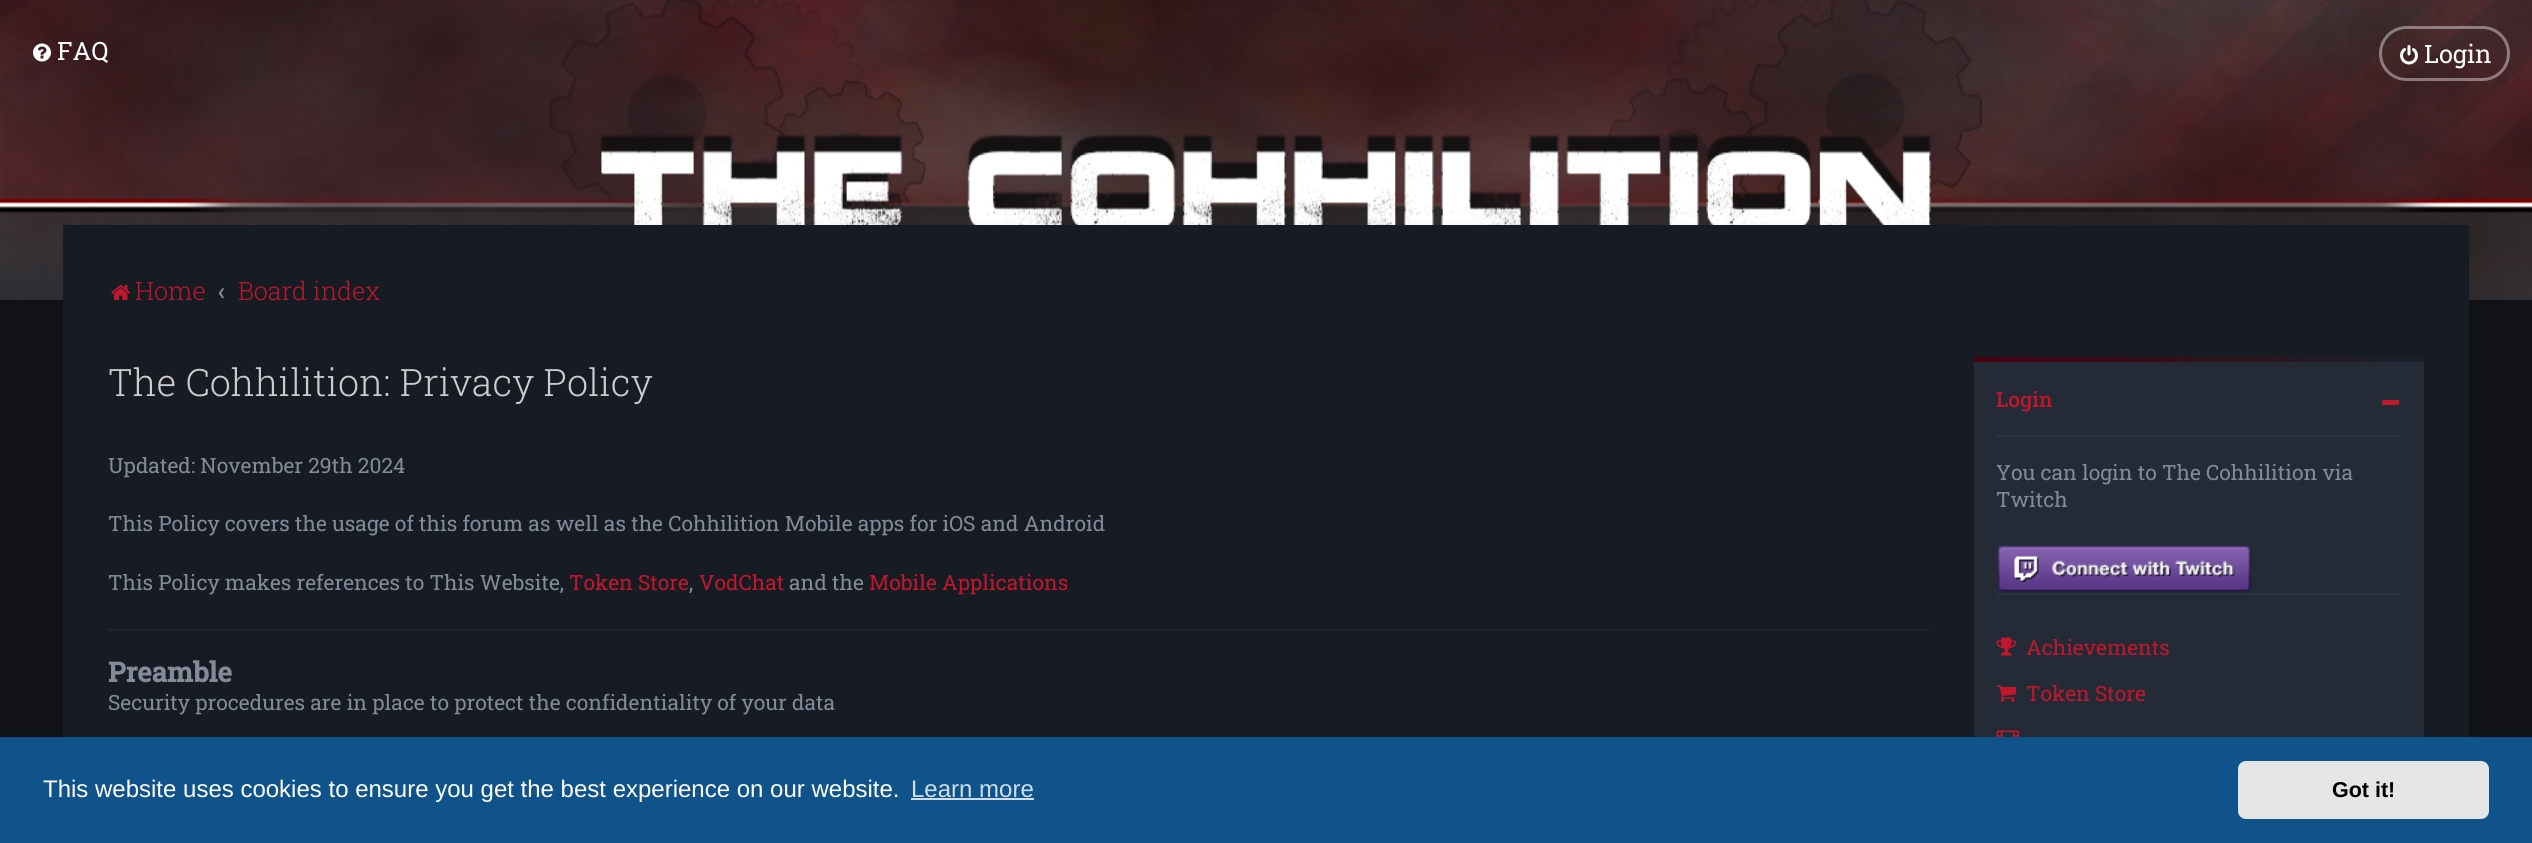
import math
import cairo



def rounded_rect(context, x, y, w, h, r):
    context.new_sub_path()
    for i, (u, v) in enumerate([(x + w - r, y + h - r), (x + r, y + h - r), (x + r, y + r), (x + w - r, y + r)]):
        context.arc(u, v, r, i * math.pi / 2, (i + 1) * math.pi / 2)
    context.close_path()


def draw_shadow(context, x, y, w, h, r, blur, alpha):
    context.push_group_with_content(cairo.Content.ALPHA)
    context.set_operator(cairo.Operator.SOURCE)
    for i in range(15, -16, -2):
        e = blur * i / 6
        if min(w, h) + 2 * e > 0:
            context.set_source_rgba(0, 0, 0, alpha * math.erfc((i - 1) / 8.5) / 2)
            rounded_rect(context, x - e, y - e, w + 2 * e, h + 2 * e, max(0, min(r + e + blur * .6, min(w, h) / 2 + e)))
            context.fill()
    context.mask(context.pop_group())


def draw_image(context, path, x, y, w, h):
    context.save()
    context.set_source_surface(cairo.ImageSurface.create_from_png(path), x, y)
    context.rectangle(x, y, w, h)
    context.fill()
    context.restore()


def draw(context):
    context.set_source_rgb(16 / 255, 18 / 255, 22 / 255)
    context.paint()
    draw_image(context, "images/1.png", 0, 0, 2532, 300)
    draw_image(context, "images/2.png", 33, 43, 18, 19)
    rounded_rect(context, 2380.5, 27.5, 128, 52, 26)
    context.set_source_rgba(1, 1, 1, 0.4)
    context.set_line_width(3)
    context.stroke()
    draw_image(context, "images/3.png", 2400, 45, 18, 20)
    context.set_source_rgb(0, 0, 0)
    draw_shadow(context, 63, 225, 2406, 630, 0, 4, 0.05)
    context.set_source_rgb(23 / 255, 27 / 255, 36 / 255)
    context.rectangle(63, 225, 2406, 512)
    context.fill()
    draw_image(context, "images/4.png", 111, 285, 20, 15)
    context.set_source_rgb(32 / 255, 36 / 255, 45 / 255)
    context.rectangle(108, 629, 1821, 2)
    context.fill()
    context.set_source_rgb(36 / 255, 42 / 255, 54 / 255)
    context.rectangle(1974, 362, 450, 375)
    context.fill()
    gradient = cairo.LinearGradient(1974, 359, 2424, 359)
    gradient.add_color_stop_rgba(0, 73 / 255, 1 / 255, 15 / 255, 1)
    gradient.add_color_stop_rgba(1, 25 / 255, 33 / 255, 41 / 255, 1)
    context.set_source(gradient)
    context.rectangle(1974, 357, 450, 5)
    context.fill()
    context.set_source_rgb(193 / 255, 23 / 255, 44 / 255)
    context.rectangle(2382, 400, 17, 5)
    context.fill()
    context.set_source_rgb(45 / 255, 51 / 255, 62 / 255)
    context.rectangle(1997, 435, 405, 2)
    context.fill()
    draw_image(context, "images/5.png", 1997, 545, 255, 48)
    context.rectangle(1997, 593, 405, 2)
    context.fill()
    draw_image(context, "images/6.png", 1996, 637, 20, 19)
    draw_image(context, "images/7.png", 1996, 685, 20, 17)
    draw_image(context, "images/8.png", 1996, 730, 23, 7)
    context.set_source_rgb(15 / 255, 83 / 255, 138 / 255)
    context.rectangle(0, 737, 2532, 106)
    context.fill()
    context.set_source_rgb(207 / 255, 221 / 255, 232 / 255)
    context.rectangle(911, 798, 123, 2)
    context.fill()
    context.set_source_rgb(229 / 255, 229 / 255, 229 / 255)
    rounded_rect(context, 2238, 761, 251, 58, 8)
    context.fill()
    context.select_font_face("Roboto Slab")
    context.set_font_size(25.25)
    context.set_source_rgb(1, 1, 1)
    context.move_to(57, 60)
    context.show_text("FAQ")
    context.move_to(2424, 63)
    context.show_text("Login")
    context.select_font_face("Roboto Slab Light")
    context.set_source_rgb(193 / 255, 23 / 255, 44 / 255)
    context.move_to(135, 300)
    context.show_text("Home")
    context.select_font_face("Roboto Slab Medium")
    context.set_source_rgb(131 / 255, 139 / 255, 152 / 255)
    context.move_to(218, 300)
    context.show_text("‹")
    context.select_font_face("Roboto Slab Light")
    context.set_source_rgb(193 / 255, 23 / 255, 44 / 255)
    context.move_to(238, 300)
    context.show_text("Board index")
    context.set_font_size(37.75)
    context.set_source_rgb(204 / 255, 204 / 255, 204 / 255)
    context.move_to(108, 396)
    context.show_text("The Cohhilition: Privacy Policy")
    context.select_font_face("Roboto Slab")
    context.set_font_size(21)
    context.set_source_rgb(131 / 255, 139 / 255, 152 / 255)
    context.move_to(108, 473)
    context.show_text("Updated: November 29th 2024")
    context.move_to(108, 531)
    context.show_text("This Policy covers the usage of this forum as well as the Cohhilition Mobile apps for iOS and Android")
    context.move_to(108, 590)
    context.show_text("This Policy makes references to This Website,")
    context.set_source_rgb(193 / 255, 23 / 255, 44 / 255)
    context.move_to(569, 590)
    context.show_text("Token Store")
    context.set_source_rgb(131 / 255, 139 / 255, 152 / 255)
    context.move_to(689, 590)
    context.show_text(",")
    context.set_source_rgb(193 / 255, 23 / 255, 44 / 255)
    context.move_to(699, 590)
    context.show_text("VodChat")
    context.set_source_rgb(131 / 255, 139 / 255, 152 / 255)
    context.move_to(789, 590)
    context.show_text("and the")
    context.set_source_rgb(193 / 255, 23 / 255, 44 / 255)
    context.move_to(869, 590)
    context.show_text("Mobile Applications")
    context.select_font_face("Roboto Slab", cairo.FontSlant.NORMAL, cairo.FontWeight.BOLD)
    context.set_font_size(27.5)
    context.set_source_rgb(131 / 255, 139 / 255, 152 / 255)
    context.move_to(108, 682)
    context.show_text("Preamble")
    context.select_font_face("Roboto Slab")
    context.set_font_size(21)
    context.move_to(108, 710)
    context.show_text("Security procedures are in place to protect the confidentiality of your data")
    context.select_font_face("Roboto Slab Medium")
    context.set_source_rgb(193 / 255, 23 / 255, 44 / 255)
    context.move_to(1996, 407)
    context.show_text("Login")
    context.select_font_face("Roboto Slab")
    context.set_source_rgb(131 / 255, 139 / 255, 152 / 255)
    context.move_to(1996, 480)
    context.show_text("You can login to The Cohhilition via")
    context.move_to(1996, 507)
    context.show_text("Twitch")
    context.set_source_rgb(193 / 255, 23 / 255, 44 / 255)
    context.move_to(2026, 655)
    context.show_text("Achievements")
    context.move_to(2026, 701)
    context.show_text("Token Store")
    context.select_font_face("Liberation Sans")
    context.set_font_size(24)
    context.set_source_rgb(1, 1, 1)
    context.move_to(43, 797)
    context.show_text("This website uses cookies to ensure you get the best experience on our website.")
    context.set_source_rgb(207 / 255, 221 / 255, 232 / 255)
    context.move_to(911, 797)
    context.show_text("Learn more")
    context.select_font_face("Liberation Sans", cairo.FontSlant.NORMAL, cairo.FontWeight.BOLD)
    context.set_font_size(21.5)
    context.set_source_rgb(0, 0, 0)
    context.move_to(2332, 797)
    context.show_text("Got it!")


surface = cairo.ImageSurface(cairo.Format.RGB24, 2532, 843)
context = cairo.Context(surface)
options = cairo.FontOptions()
options.set_hint_metrics(cairo.HintMetrics.OFF)
options.set_hint_style(cairo.HintStyle.NONE)
context.set_font_options(options)
context.set_miter_limit(4)
draw(context)
surface.write_to_png("out.png")
